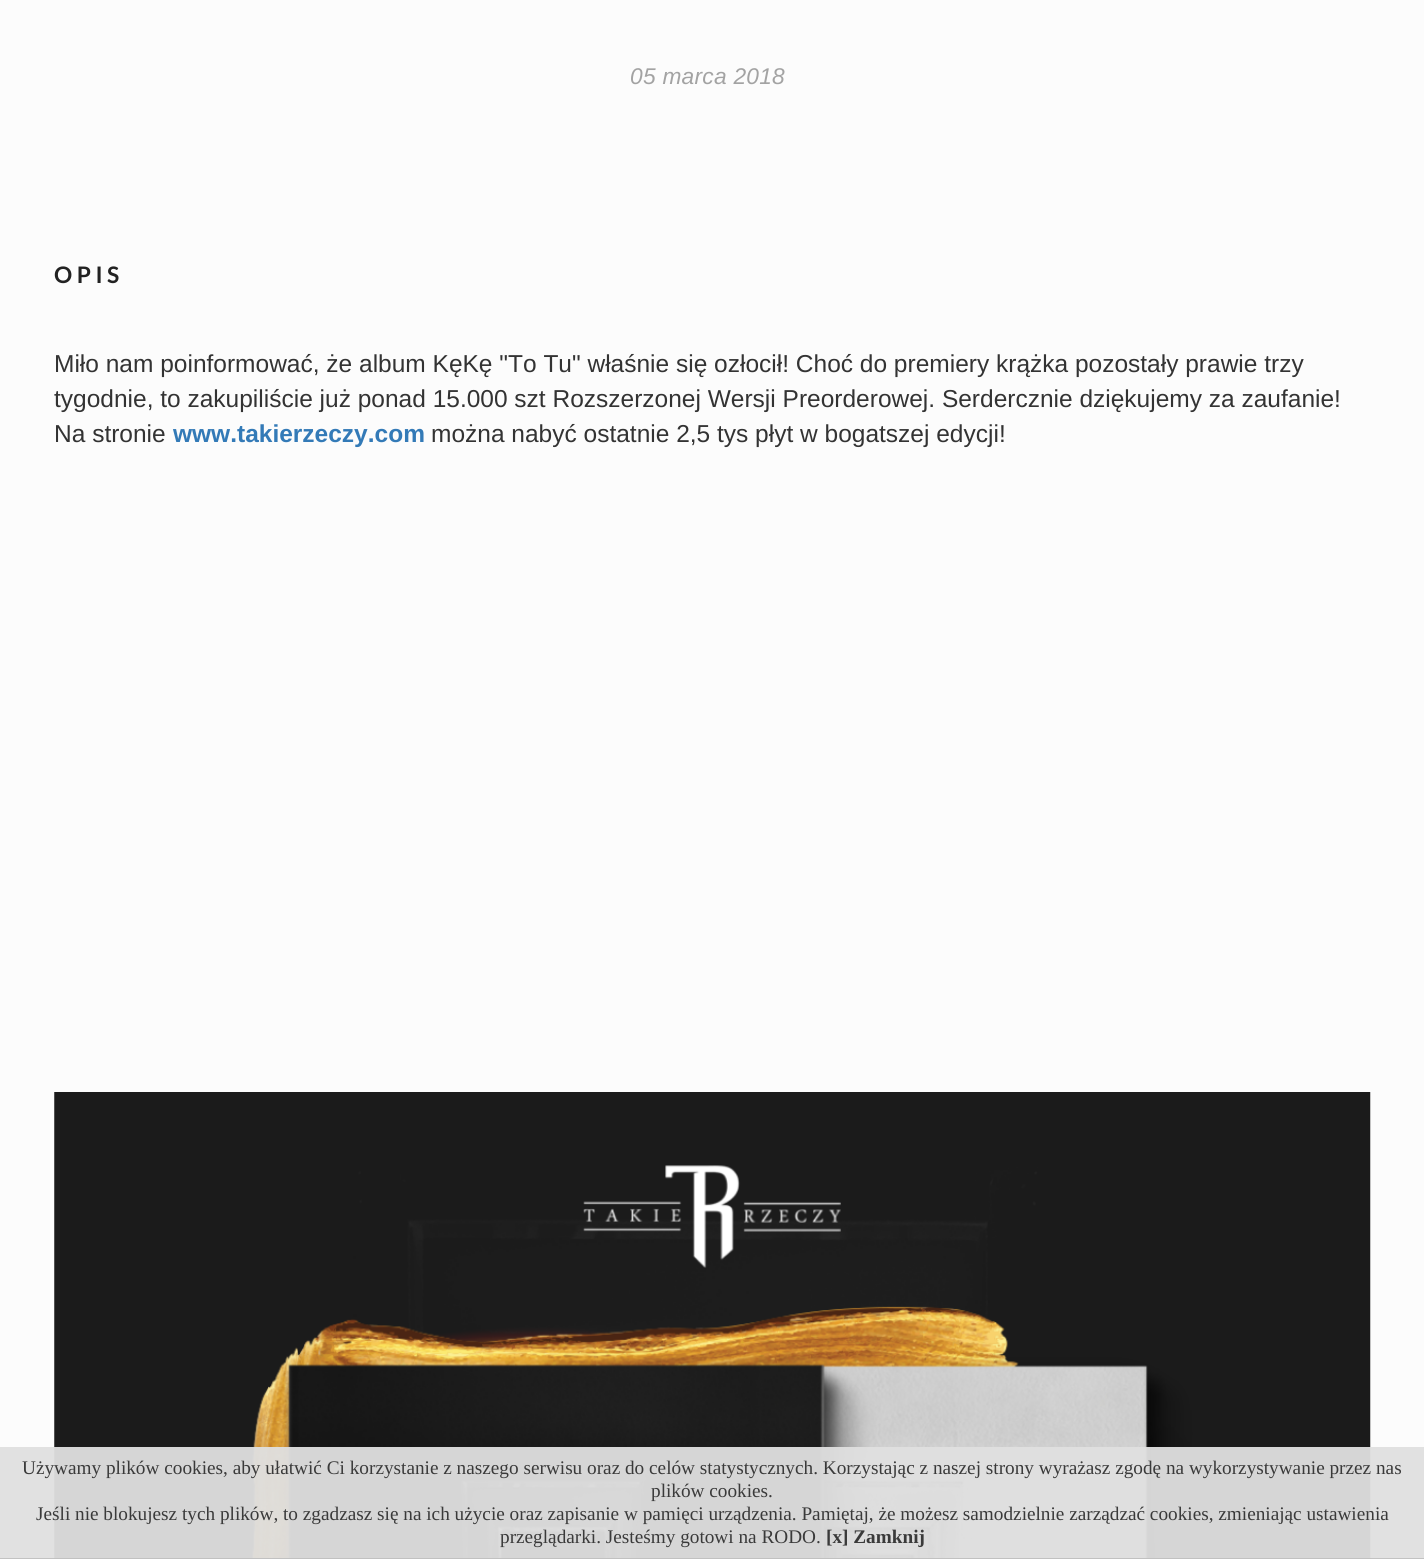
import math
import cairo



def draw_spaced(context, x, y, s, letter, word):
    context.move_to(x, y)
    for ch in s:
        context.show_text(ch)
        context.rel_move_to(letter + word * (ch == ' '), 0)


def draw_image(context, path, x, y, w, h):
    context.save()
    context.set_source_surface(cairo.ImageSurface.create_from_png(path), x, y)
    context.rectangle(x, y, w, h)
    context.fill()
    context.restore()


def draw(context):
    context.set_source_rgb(252 / 255, 252 / 255, 252 / 255)
    context.paint()
    draw_image(context, "images/1.png", 54, 1092, 1317, 467)
    context.set_source_rgba(224 / 255, 224 / 255, 224 / 255, 0.95)
    context.rectangle(0, 1447, 1424, 112)
    context.fill()
    context.set_source_rgba(192 / 255, 192 / 255, 192 / 255, 0.95)
    context.rectangle(0, 1558, 1424, 1)
    context.fill()
    context.select_font_face("Liberation Sans", cairo.FontSlant.ITALIC)
    context.set_font_size(22.75)
    context.set_source_rgb(163 / 255, 163 / 255, 163 / 255)
    draw_spaced(context, 630, 84, "05 marca 2018", 0.25, 0)
    context.select_font_face("Lato", cairo.FontSlant.NORMAL, cairo.FontWeight.BOLD)
    context.set_source_rgb(34 / 255, 34 / 255, 34 / 255)
    draw_spaced(context, 54, 283, "OPIS", 4.5, 0)
    context.select_font_face("Liberation Sans")
    context.set_font_size(24.5)
    context.set_source_rgb(51 / 255, 51 / 255, 51 / 255)
    context.move_to(54, 372)
    context.show_text("Miło nam poinformować, że album KęKę \"To Tu\" właśnie się ozłocił! Choć do premiery krążka pozostały prawie trzy")
    context.move_to(54, 407)
    context.show_text("tygodnie, to zakupiliście już ponad 15.000 szt Rozszerzonej Wersji Preorderowej. Serdercznie dziękujemy za zaufanie!")
    context.move_to(54, 442)
    context.show_text("Na stronie")
    context.select_font_face("Liberation Sans", cairo.FontSlant.NORMAL, cairo.FontWeight.BOLD)
    context.set_source_rgb(51 / 255, 122 / 255, 183 / 255)
    context.move_to(173, 442)
    context.show_text("www.takierzeczy.com")
    context.select_font_face("Liberation Sans")
    context.set_source_rgb(51 / 255, 51 / 255, 51 / 255)
    context.move_to(431, 442)
    context.show_text("można nabyć ostatnie 2,5 tys płyt w bogatszej edycji!")
    context.select_font_face("Liberation Serif")
    context.set_font_size(19.25)
    context.set_source_rgb(58 / 255, 58 / 255, 58 / 255)
    context.move_to(22, 1474)
    context.show_text("Używamy plików cookies, aby ułatwić Ci korzystanie z naszego serwisu oraz do celów statystycznych. Korzystając z naszej strony wyrażasz zgodę na wykorzystywanie przez nas")
    context.move_to(651, 1497)
    context.show_text("plików cookies.")
    context.move_to(36, 1520)
    context.show_text("Jeśli nie blokujesz tych plików, to zgadzasz się na ich użycie oraz zapisanie w pamięci urządzenia. Pamiętaj, że możesz samodzielnie zarządzać cookies, zmieniając ustawienia")
    context.move_to(500, 1543)
    context.show_text("przeglądarki. Jesteśmy gotowi na RODO.")
    context.select_font_face("Liberation Serif", cairo.FontSlant.NORMAL, cairo.FontWeight.BOLD)
    context.move_to(826, 1543)
    context.show_text("[x] Zamknij")


surface = cairo.ImageSurface(cairo.Format.RGB24, 1424, 1559)
context = cairo.Context(surface)
options = cairo.FontOptions()
options.set_hint_metrics(cairo.HintMetrics.OFF)
options.set_hint_style(cairo.HintStyle.NONE)
context.set_font_options(options)
context.set_miter_limit(4)
draw(context)
surface.write_to_png("out.png")
